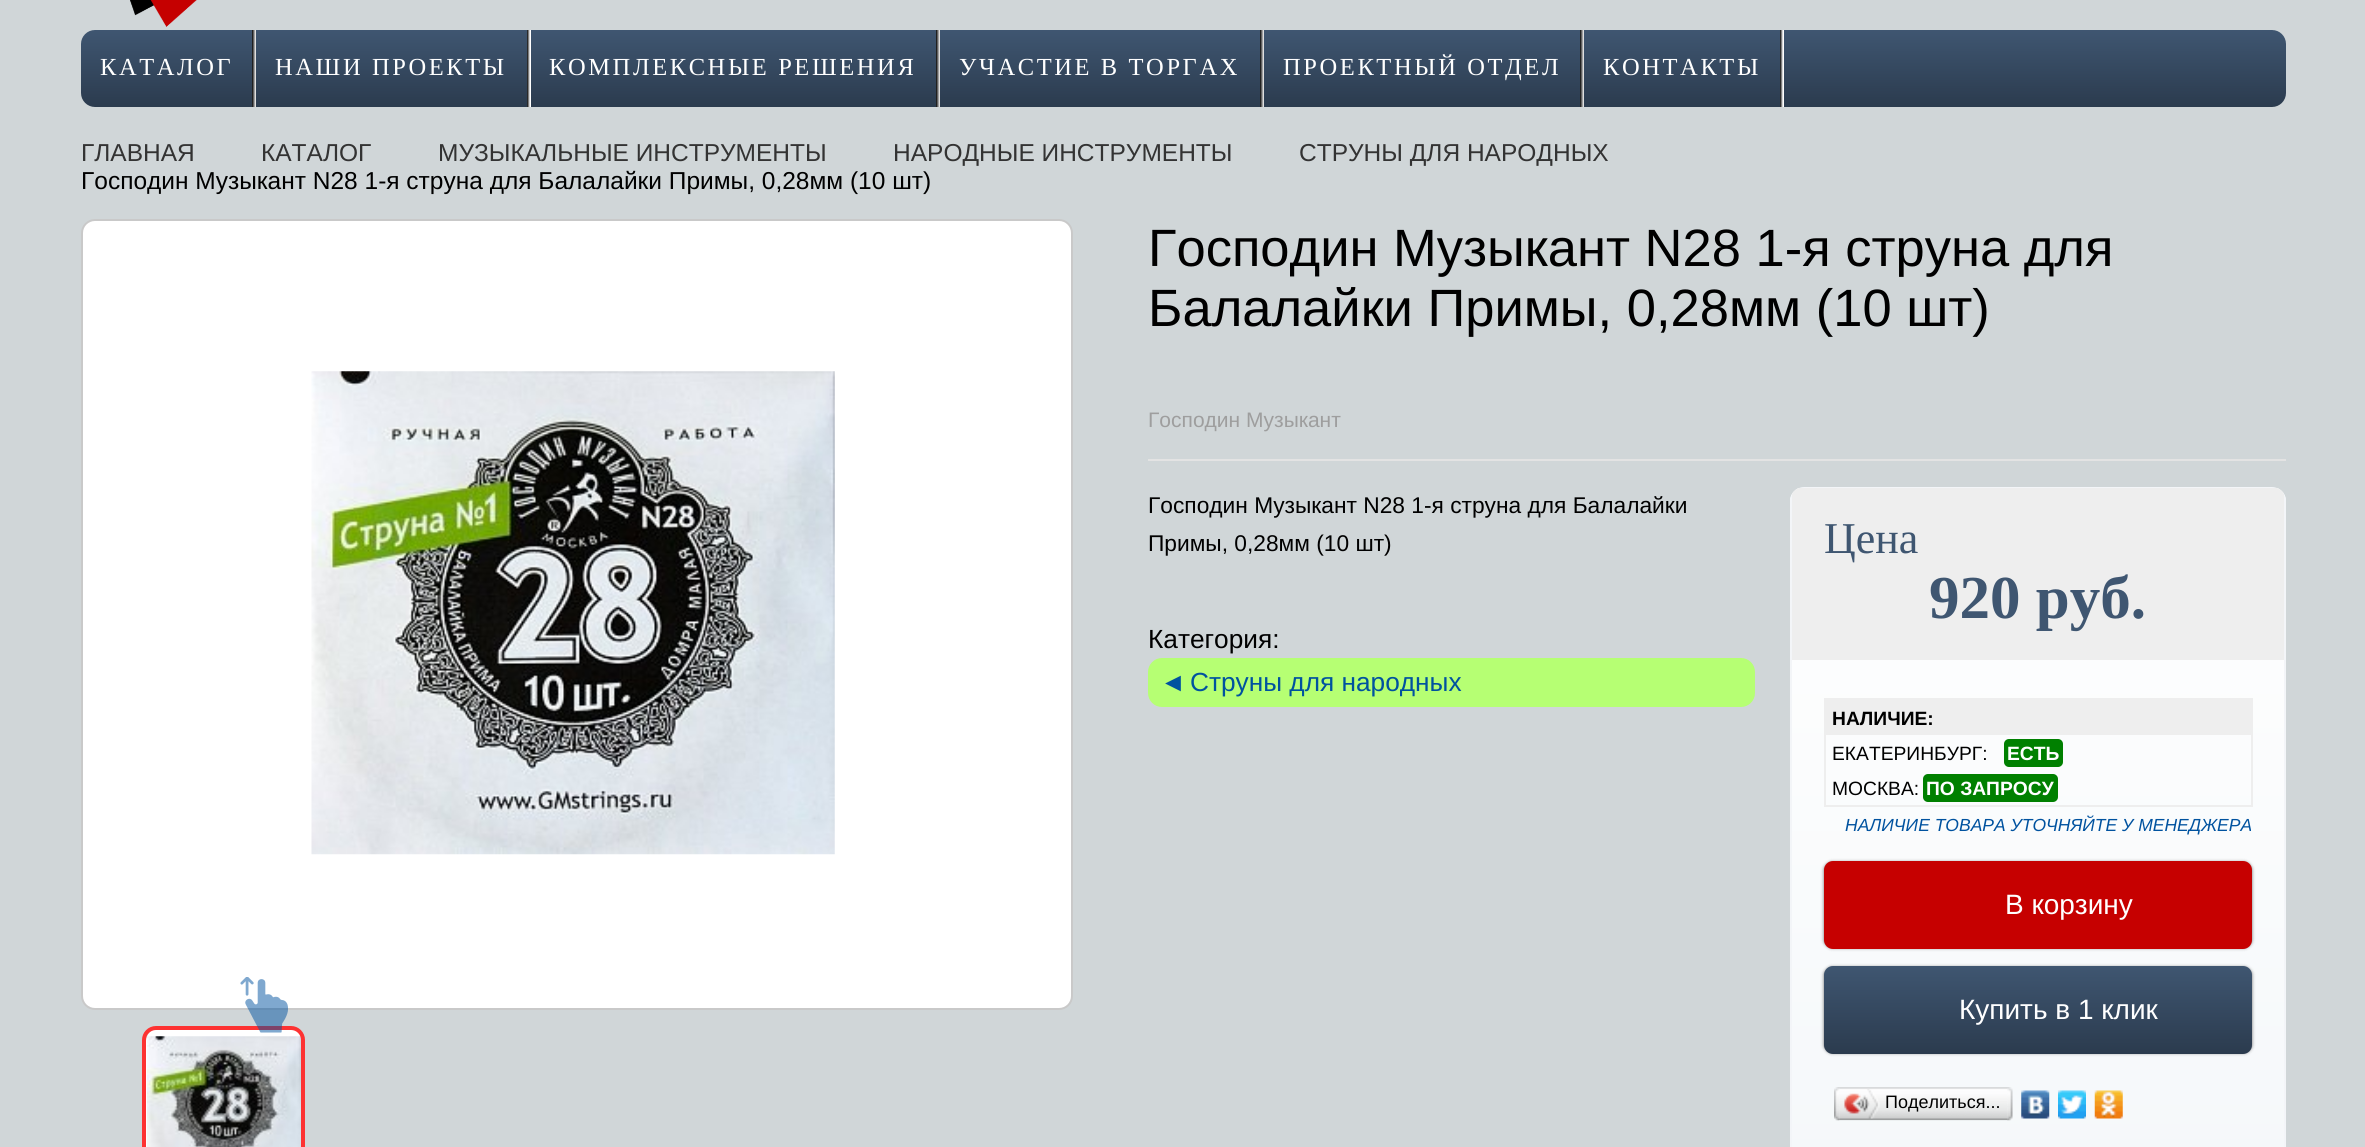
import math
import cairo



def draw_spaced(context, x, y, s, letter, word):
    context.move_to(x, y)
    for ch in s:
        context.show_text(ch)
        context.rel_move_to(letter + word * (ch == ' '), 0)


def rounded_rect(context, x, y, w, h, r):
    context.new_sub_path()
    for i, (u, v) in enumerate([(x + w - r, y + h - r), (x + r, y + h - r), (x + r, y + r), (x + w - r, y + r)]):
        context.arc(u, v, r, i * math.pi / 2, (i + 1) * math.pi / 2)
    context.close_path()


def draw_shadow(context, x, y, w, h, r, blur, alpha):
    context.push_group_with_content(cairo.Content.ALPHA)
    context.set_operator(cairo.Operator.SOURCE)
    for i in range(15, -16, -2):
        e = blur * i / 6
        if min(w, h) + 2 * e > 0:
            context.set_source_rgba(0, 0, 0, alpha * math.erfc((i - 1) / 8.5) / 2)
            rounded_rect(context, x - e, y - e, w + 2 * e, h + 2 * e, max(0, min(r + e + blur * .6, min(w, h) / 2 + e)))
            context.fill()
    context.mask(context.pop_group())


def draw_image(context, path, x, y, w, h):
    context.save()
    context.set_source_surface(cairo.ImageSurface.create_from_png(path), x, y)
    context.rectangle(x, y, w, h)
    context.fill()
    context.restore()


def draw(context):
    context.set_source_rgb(208 / 255, 214 / 255, 216 / 255)
    context.paint()
    draw_image(context, "images/1.png", 130, 0, 67, 27)
    gradient = cairo.LinearGradient(1183, 30, 1183, 107)
    gradient.add_color_stop_rgba(0, 63 / 255, 86 / 255, 113 / 255, 1)
    gradient.add_color_stop_rgba(1, 43 / 255, 59 / 255, 78 / 255, 1)
    context.set_source(gradient)
    rounded_rect(context, 81, 30, 2205, 77, 14)
    context.fill()
    gradient = cairo.LinearGradient(252, 68, 256, 68)
    gradient.add_color_stop_rgba(0, 0, 0, 0, 1)
    gradient.add_color_stop_rgba(1, 1, 1, 1, 1)
    context.set_source(gradient)
    context.rectangle(252, 30, 4, 77)
    context.fill()
    gradient = cairo.LinearGradient(527, 68, 530, 68)
    gradient.add_color_stop_rgba(0, 0, 0, 0, 1)
    gradient.add_color_stop_rgba(1, 1, 1, 1, 1)
    context.set_source(gradient)
    context.rectangle(527, 30, 4, 77)
    context.fill()
    gradient = cairo.LinearGradient(936, 68, 940, 68)
    gradient.add_color_stop_rgba(0, 0, 0, 0, 1)
    gradient.add_color_stop_rgba(1, 1, 1, 1, 1)
    context.set_source(gradient)
    context.rectangle(936, 30, 4, 77)
    context.fill()
    gradient = cairo.LinearGradient(1260, 68, 1264, 68)
    gradient.add_color_stop_rgba(0, 0, 0, 0, 1)
    gradient.add_color_stop_rgba(1, 1, 1, 1, 1)
    context.set_source(gradient)
    context.rectangle(1260, 30, 4, 77)
    context.fill()
    gradient = cairo.LinearGradient(1580, 68, 1584, 68)
    gradient.add_color_stop_rgba(0, 0, 0, 0, 1)
    gradient.add_color_stop_rgba(1, 1, 1, 1, 1)
    context.set_source(gradient)
    context.rectangle(1580, 30, 4, 77)
    context.fill()
    gradient = cairo.LinearGradient(1780, 68, 1783, 68)
    gradient.add_color_stop_rgba(0, 0, 0, 0, 1)
    gradient.add_color_stop_rgba(1, 1, 1, 1, 1)
    context.set_source(gradient)
    context.rectangle(1780, 30, 4, 77)
    context.fill()
    context.set_source_rgb(1, 1, 1)
    rounded_rect(context, 82, 220, 990, 789, 13)
    context.fill_preserve()
    context.set_source_rgb(201 / 255, 201 / 255, 201 / 255)
    context.stroke()
    draw_image(context, "images/2.png", 311, 371, 524, 484)
    context.set_source_rgb(1, 1, 1)
    rounded_rect(context, 145, 1028, 159, 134, 13)
    context.fill_preserve()
    context.set_source_rgb(209 / 255, 209 / 255, 209 / 255)
    context.stroke()
    draw_image(context, "images/3.png", 147, 1036, 154, 111)
    rounded_rect(context, 144, 1028, 159, 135, 12)
    context.set_source_rgb(253 / 255, 50 / 255, 50 / 255)
    context.set_line_width(4)
    context.stroke()
    context.set_source_rgb(227 / 255, 227 / 255, 227 / 255)
    context.rectangle(1148, 459, 1138, 2)
    context.fill()
    context.set_source_rgb(182 / 255, 1, 115 / 255)
    rounded_rect(context, 1148, 658, 607, 49, 14)
    context.fill()
    context.save()
    rounded_rect(context, 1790, 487, 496, 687, 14)
    context.clip()
    context.set_source_rgb(184 / 255, 200 / 255, 216 / 255)
    draw_shadow(context, 1789, 492, 491, 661, 0, 2, 1)
    draw_shadow(context, 1796, 492, 491, 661, 0, 2, 1)
    context.restore()
    context.save()
    rounded_rect(context, 1790, 487, 496, 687, 14)
    context.clip()
    gradient = cairo.LinearGradient(2038, 488, 2038, 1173)
    gradient.add_color_stop_rgba(0, 1, 1, 1, 1)
    gradient.add_color_stop_rgba(1, 245 / 255, 248 / 255, 250 / 255, 1)
    context.set_source(gradient)
    context.rectangle(1790, 488, 496, 659)
    context.fill()
    context.restore()
    context.set_source_rgb(243 / 255, 245 / 255, 248 / 255)
    context.set_fill_rule(cairo.FillRule.EVEN_ODD)
    context.new_path()
    context.move_to(1790, 501)
    context.line_to(1790, 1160)
    context.curve_to(1790, 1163, 1791, 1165, 1792, 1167)
    context.line_to(1792, 494)
    context.curve_to(1791, 496, 1790, 498, 1790, 501)
    context.close_path()
    context.move_to(1804, 487)
    context.curve_to(1801, 487, 1799, 488, 1797, 489)
    context.line_to(2279, 489)
    context.curve_to(2277, 488, 2275, 487, 2272, 487)
    context.close_path()
    context.move_to(2286, 501)
    context.curve_to(2286, 498, 2285, 496, 2284, 494)
    context.line_to(2284, 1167)
    context.curve_to(2285, 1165, 2286, 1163, 2286, 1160)
    context.close_path()
    context.move_to(2272, 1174)
    context.curve_to(2275, 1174, 2277, 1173, 2279, 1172)
    context.line_to(1797, 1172)
    context.curve_to(1799, 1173, 1801, 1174, 1804, 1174)
    context.close_path()
    context.fill()
    context.save()
    context.set_fill_rule(cairo.FillRule.WINDING)
    rounded_rect(context, 1790, 487, 496, 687, 14)
    context.clip()
    context.set_source_rgb(238 / 255, 238 / 255, 238 / 255)
    context.rectangle(1792, 488, 492, 172)
    context.fill()
    context.restore()
    context.set_source_rgb(238 / 255, 238 / 255, 238 / 255)
    context.rectangle(1824, 698, 428, 2)
    context.fill()
    context.rectangle(2251, 698, 2, 109)
    context.fill()
    context.rectangle(1824, 805, 428, 2)
    context.fill()
    context.rectangle(1824, 698, 2, 109)
    context.fill()
    context.rectangle(1826, 700, 425, 35)
    context.fill()
    context.set_source_rgb(0, 128 / 255, 0)
    rounded_rect(context, 2004, 739, 59, 28, 5)
    context.fill()
    rounded_rect(context, 1923, 774, 135, 28, 5)
    context.fill()
    context.set_source_rgb(0, 0, 0)
    draw_shadow(context, 1825, 863, 426, 84, 7, 2, 1)
    context.set_source_rgb(198 / 255, 0, 0)
    rounded_rect(context, 1824, 861, 428, 88, 9)
    context.fill()
    context.set_source_rgb(0, 0, 0)
    draw_shadow(context, 1825, 968, 426, 84, 7, 2, 1)
    gradient = cairo.LinearGradient(2038, 966, 2038, 1054)
    gradient.add_color_stop_rgba(0, 63 / 255, 86 / 255, 113 / 255, 1)
    gradient.add_color_stop_rgba(1, 43 / 255, 59 / 255, 78 / 255, 1)
    context.set_source(gradient)
    rounded_rect(context, 1824, 966, 428, 88, 9)
    context.fill()
    draw_image(context, "images/4.png", 1839, 1087, 169, 34)
    draw_image(context, "images/5.png", 1834, 1087, 6, 34)
    draw_image(context, "images/6.png", 1844, 1089, 36, 30)
    draw_image(context, "images/7.png", 2007, 1087, 6, 34)
    draw_image(context, "images/8.png", 2021, 1090, 29, 29)
    draw_image(context, "images/9.png", 2058, 1090, 28, 29)
    draw_image(context, "images/10.png", 2094, 1090, 29, 29)
    draw_image(context, "images/11.png", 240, 977, 48, 56)
    context.select_font_face("Liberation Serif")
    context.set_font_size(24.5)
    context.set_source_rgb(1, 1, 1)
    draw_spaced(context, 100, 75, "КАТАЛОГ", 2.6, 0)
    draw_spaced(context, 275, 75, "НАШИ ПРОЕКТЫ", 2.6, 0)
    draw_spaced(context, 549, 75, "КОМПЛЕКСНЫЕ РЕШЕНИЯ", 2.6, 0)
    draw_spaced(context, 959, 75, "УЧАСТИЕ В ТОРГАХ", 2.6, 0)
    draw_spaced(context, 1283, 75, "ПРОЕКТНЫЙ ОТДЕЛ", 2.6, 0)
    draw_spaced(context, 1603, 75, "КОНТАКТЫ", 2.6, 0)
    context.select_font_face("Liberation Sans")
    context.set_source_rgb(51 / 255, 51 / 255, 51 / 255)
    context.move_to(81, 161)
    context.show_text("ГЛАВНАЯ")
    context.move_to(261, 161)
    context.show_text("КАТАЛОГ")
    context.move_to(438, 161)
    context.show_text("МУЗЫКАЛЬНЫЕ ИНСТРУМЕНТЫ")
    context.move_to(893, 161)
    context.show_text("НАРОДНЫЕ ИНСТРУМЕНТЫ")
    context.move_to(1299, 161)
    context.show_text("СТРУНЫ ДЛЯ НАРОДНЫХ")
    context.set_source_rgb(0, 0, 0)
    context.move_to(81, 189)
    context.show_text("Господин Музыкант N28 1-я струна для Балалайки Примы, 0,28мм (10 шт)")
    context.set_font_size(52.5)
    context.move_to(1148, 266)
    context.show_text("Господин Музыкант N28 1-я струна для")
    context.move_to(1148, 326)
    context.show_text("Балалайки Примы, 0,28мм (10 шт)")
    context.set_font_size(21)
    context.set_source_rgb(158 / 255, 158 / 255, 158 / 255)
    context.move_to(1148, 427)
    context.show_text("Господин Музыкант")
    context.set_font_size(22.75)
    context.set_source_rgb(0, 0, 0)
    context.move_to(1148, 513)
    context.show_text("Господин Музыкант N28 1-я струна для Балалайки")
    context.move_to(1148, 551)
    context.show_text("Примы, 0,28мм (10 шт)")
    context.set_font_size(26.25)
    context.move_to(1148, 648)
    context.show_text("Категория:")
    context.set_source_rgb(0, 82 / 255, 159 / 255)
    context.move_to(1160, 691)
    context.show_text("◄")
    context.move_to(1190, 691)
    context.show_text("Струны для народных")
    context.select_font_face("Liberation Serif")
    context.set_font_size(44)
    context.set_source_rgb(63 / 255, 86 / 255, 113 / 255)
    context.move_to(1824, 553)
    context.show_text("Цена")
    context.select_font_face("Liberation Serif", cairo.FontSlant.NORMAL, cairo.FontWeight.BOLD)
    context.set_font_size(61)
    context.move_to(1929, 618)
    context.show_text("920 руб.")
    context.select_font_face("Liberation Sans", cairo.FontSlant.NORMAL, cairo.FontWeight.BOLD)
    context.set_font_size(19.25)
    context.set_source_rgb(0, 0, 0)
    context.move_to(1832, 725)
    context.show_text("НАЛИЧИЕ:")
    context.select_font_face("Liberation Sans")
    context.move_to(1832, 760)
    context.show_text("ЕКАТЕРИНБУРГ:")
    context.select_font_face("Liberation Sans", cairo.FontSlant.NORMAL, cairo.FontWeight.BOLD)
    context.set_source_rgb(1, 1, 1)
    context.move_to(2007, 760)
    context.show_text("ЕСТЬ")
    context.select_font_face("Liberation Sans")
    context.set_source_rgb(0, 0, 0)
    context.move_to(1832, 795)
    context.show_text("МОСКВА:")
    context.select_font_face("Liberation Sans", cairo.FontSlant.NORMAL, cairo.FontWeight.BOLD)
    context.set_source_rgb(1, 1, 1)
    context.move_to(1926, 795)
    context.show_text("ПО ЗАПРОСУ")
    context.select_font_face("Liberation Sans", cairo.FontSlant.ITALIC)
    context.set_font_size(17.5)
    context.set_source_rgb(0, 82 / 255, 159 / 255)
    context.move_to(1845, 831)
    context.show_text("НАЛИЧИЕ ТОВАРА УТОЧНЯЙТЕ У МЕНЕДЖЕРА")
    context.select_font_face("Liberation Sans")
    context.set_font_size(28)
    context.set_source_rgb(1, 1, 1)
    context.move_to(2005, 914)
    context.show_text("В корзину")
    context.move_to(1959, 1019)
    context.show_text("Купить в 1 клик")
    context.set_font_size(18)
    context.set_source_rgb(0, 0, 0)
    context.move_to(1885, 1108)
    context.show_text("Поделиться...")


surface = cairo.ImageSurface(cairo.Format.RGB24, 2365, 1147)
context = cairo.Context(surface)
options = cairo.FontOptions()
options.set_hint_metrics(cairo.HintMetrics.OFF)
options.set_hint_style(cairo.HintStyle.NONE)
context.set_font_options(options)
context.set_miter_limit(4)
draw(context)
surface.write_to_png("out.png")
